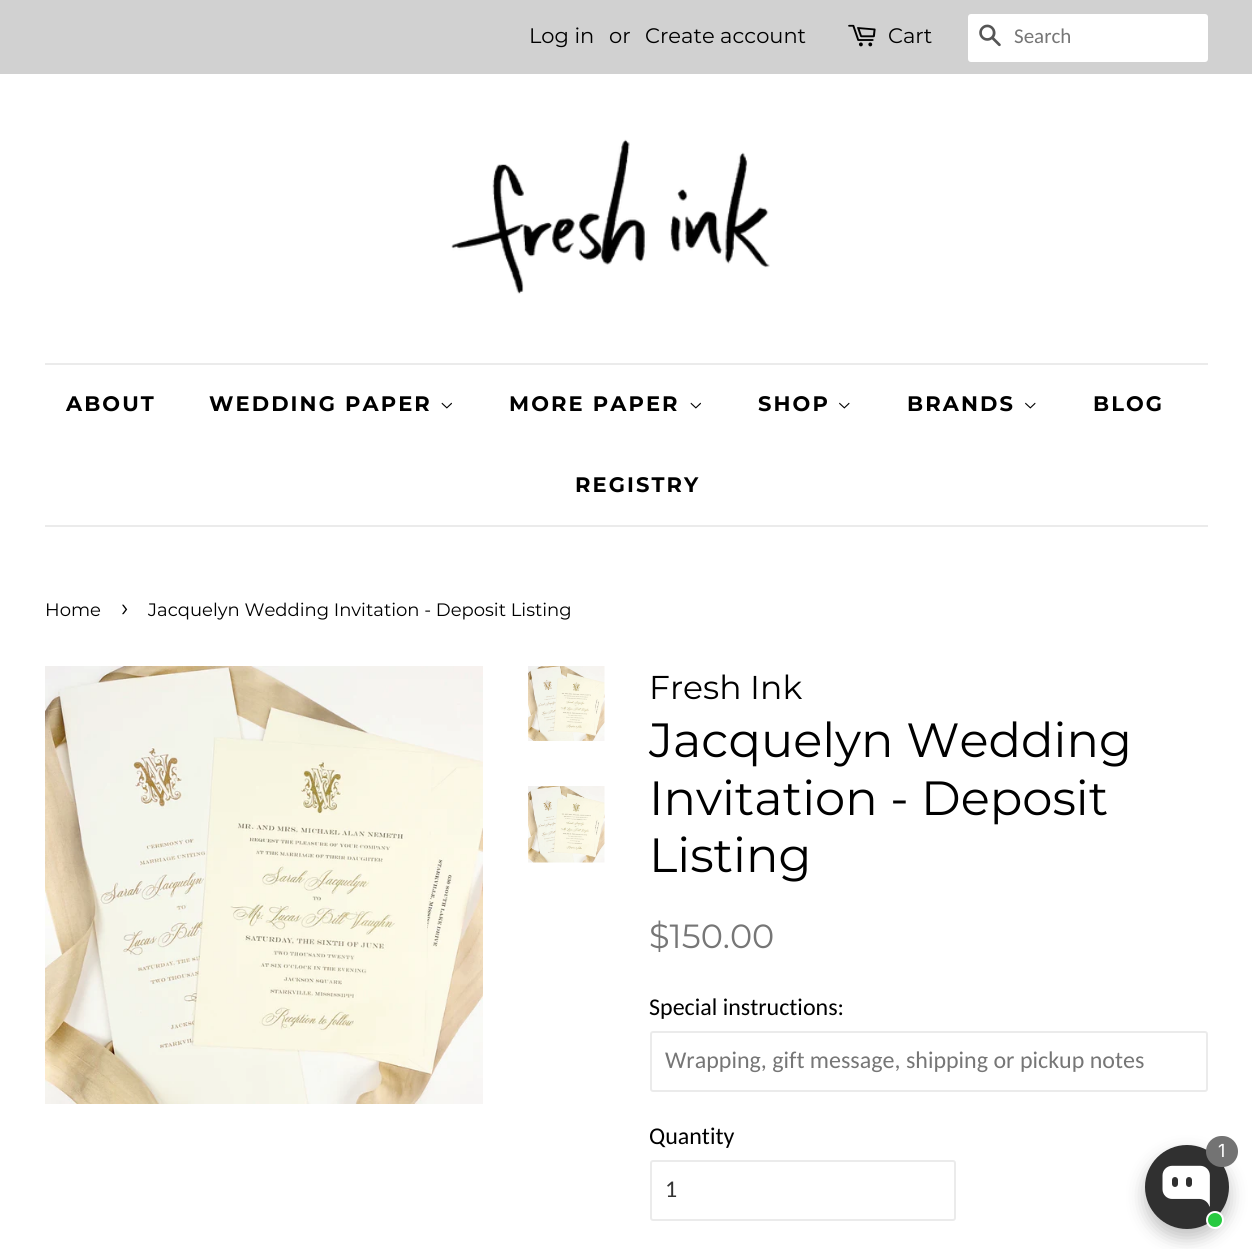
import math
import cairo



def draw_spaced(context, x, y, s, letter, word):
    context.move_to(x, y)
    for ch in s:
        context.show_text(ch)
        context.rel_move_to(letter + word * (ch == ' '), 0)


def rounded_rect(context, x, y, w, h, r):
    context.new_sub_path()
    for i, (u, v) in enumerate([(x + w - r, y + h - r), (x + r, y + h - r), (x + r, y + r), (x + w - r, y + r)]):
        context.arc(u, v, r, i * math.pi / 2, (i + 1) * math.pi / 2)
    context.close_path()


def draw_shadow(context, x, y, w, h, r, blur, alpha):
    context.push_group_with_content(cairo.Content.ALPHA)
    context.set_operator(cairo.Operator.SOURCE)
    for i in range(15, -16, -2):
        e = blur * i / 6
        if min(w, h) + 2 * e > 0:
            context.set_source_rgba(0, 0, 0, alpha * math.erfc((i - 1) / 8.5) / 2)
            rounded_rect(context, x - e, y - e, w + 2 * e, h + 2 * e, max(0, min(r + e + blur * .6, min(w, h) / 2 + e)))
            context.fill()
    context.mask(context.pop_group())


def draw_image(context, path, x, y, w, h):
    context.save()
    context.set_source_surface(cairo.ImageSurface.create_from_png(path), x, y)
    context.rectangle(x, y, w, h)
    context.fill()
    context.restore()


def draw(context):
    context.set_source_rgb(1, 1, 1)
    context.paint()
    context.set_source_rgb(209 / 255, 209 / 255, 209 / 255)
    context.rectangle(0, 0, 1252, 74)
    context.fill()
    draw_image(context, "images/1.png", 848, 24, 28, 23)
    context.set_source_rgb(1, 1, 1)
    rounded_rect(context, 968, 14, 240, 48, 3)
    context.fill()
    draw_image(context, "images/2.png", 979, 24, 22, 23)
    draw_image(context, "images/3.png", 451, 139, 319, 155)
    context.set_source_rgb(235 / 255, 235 / 255, 235 / 255)
    context.rectangle(45, 363, 1163, 2)
    context.fill()
    context.rectangle(45, 525, 1163, 2)
    context.fill()
    draw_image(context, "images/4.png", 441, 402, 11, 7)
    draw_image(context, "images/4.png", 690, 402, 11, 7)
    draw_image(context, "images/5.png", 839, 402, 11, 7)
    draw_image(context, "images/5.png", 1025, 402, 11, 7)
    draw_image(context, "images/6.png", 45, 666, 438, 438)
    draw_image(context, "images/7.png", 528, 666, 77, 75)
    draw_image(context, "images/8.png", 528, 786, 77, 77)
    rounded_rect(context, 651, 1032, 556, 59, 2)
    context.stroke()
    rounded_rect(context, 651, 1161, 304, 59, 2)
    context.stroke()
    context.set_source_rgb(0, 0, 0)
    draw_shadow(context, 1145, 1154, 84, 84, 42, 9, 0.25)
    context.set_source_rgb(48 / 255, 48 / 255, 48 / 255)
    context.arc(1187, 1187, 42, 0, 2 * math.pi)
    context.fill()
    draw_image(context, "images/9.png", 1162, 1165, 48, 42)
    context.set_source_rgb(39 / 255, 202 / 255, 64 / 255)
    context.arc(1215, 1220, 8, 0, 2 * math.pi)
    context.fill_preserve()
    context.set_source_rgb(1, 1, 1)
    context.stroke()
    context.set_source_rgb(115 / 255, 115 / 255, 115 / 255)
    rounded_rect(context, 1206, 1136, 32, 31, 15.5)
    context.fill()
    context.select_font_face("Montserrat Thin")
    context.set_font_size(21)
    context.set_source_rgb(0, 0, 0)
    context.move_to(529, 43)
    context.show_text("Log in")
    context.move_to(609, 43)
    context.show_text("or")
    context.move_to(645, 43)
    context.show_text("Create account")
    context.move_to(888, 43)
    context.show_text("Cart")
    context.select_font_face("Carlito")
    context.set_source_rgb(118 / 255, 118 / 255, 118 / 255)
    context.move_to(1014, 43)
    context.show_text("Search")
    context.select_font_face("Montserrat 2 Thin")
    context.set_source_rgb(0, 0, 0)
    draw_spaced(context, 66, 411, "ABOUT", 2.1, 0)
    draw_spaced(context, 209, 411, "WEDDING PAPER", 2.1, 0)
    draw_spaced(context, 509, 411, "MORE PAPER", 2.1, 0)
    draw_spaced(context, 758, 411, "SHOP", 2.1, 0)
    draw_spaced(context, 907, 411, "BRANDS", 2.1, 0)
    draw_spaced(context, 1093, 411, "BLOG", 2.1, 0)
    draw_spaced(context, 575, 492, "REGISTRY", 2.1, 0)
    context.select_font_face("Montserrat Thin")
    context.set_font_size(18)
    context.move_to(45, 616)
    context.show_text("Home")
    context.set_font_size(25)
    context.move_to(121, 616)
    context.show_text("›")
    context.set_font_size(18)
    context.move_to(148, 616)
    context.show_text("Jacquelyn Wedding Invitation - Deposit Listing")
    context.set_font_size(33)
    context.move_to(649, 699)
    context.show_text("Fresh Ink")
    context.set_font_size(48)
    context.move_to(649, 757)
    context.show_text("Jacquelyn Wedding")
    context.move_to(649, 815)
    context.show_text("Invitation - Deposit")
    context.move_to(649, 872)
    context.show_text("Listing")
    context.set_font_size(33.5)
    context.set_source_rgb(118 / 255, 118 / 255, 118 / 255)
    context.move_to(649, 948)
    context.show_text("$150.00")
    context.select_font_face("Carlito")
    context.set_font_size(24)
    context.set_source_rgb(0, 0, 0)
    context.move_to(649, 1015)
    context.show_text("Special instructions:")
    context.set_source_rgb(118 / 255, 118 / 255, 118 / 255)
    context.move_to(665, 1068)
    context.show_text("Wrapping, gift message, shipping or pickup notes")
    context.set_source_rgb(0, 0, 0)
    context.move_to(649, 1144)
    context.show_text("Quantity")
    context.set_source_rgb(51 / 255, 51 / 255, 51 / 255)
    context.move_to(665, 1197)
    context.show_text("1")
    context.select_font_face("Inter")
    context.set_font_size(18)
    context.set_source_rgb(1, 1, 1)
    context.move_to(1218, 1157)
    context.show_text("1")


surface = cairo.ImageSurface(cairo.Format.RGB24, 1252, 1249)
context = cairo.Context(surface)
options = cairo.FontOptions()
options.set_hint_metrics(cairo.HintMetrics.OFF)
options.set_hint_style(cairo.HintStyle.NONE)
context.set_font_options(options)
context.set_miter_limit(4)
draw(context)
surface.write_to_png("out.png")
